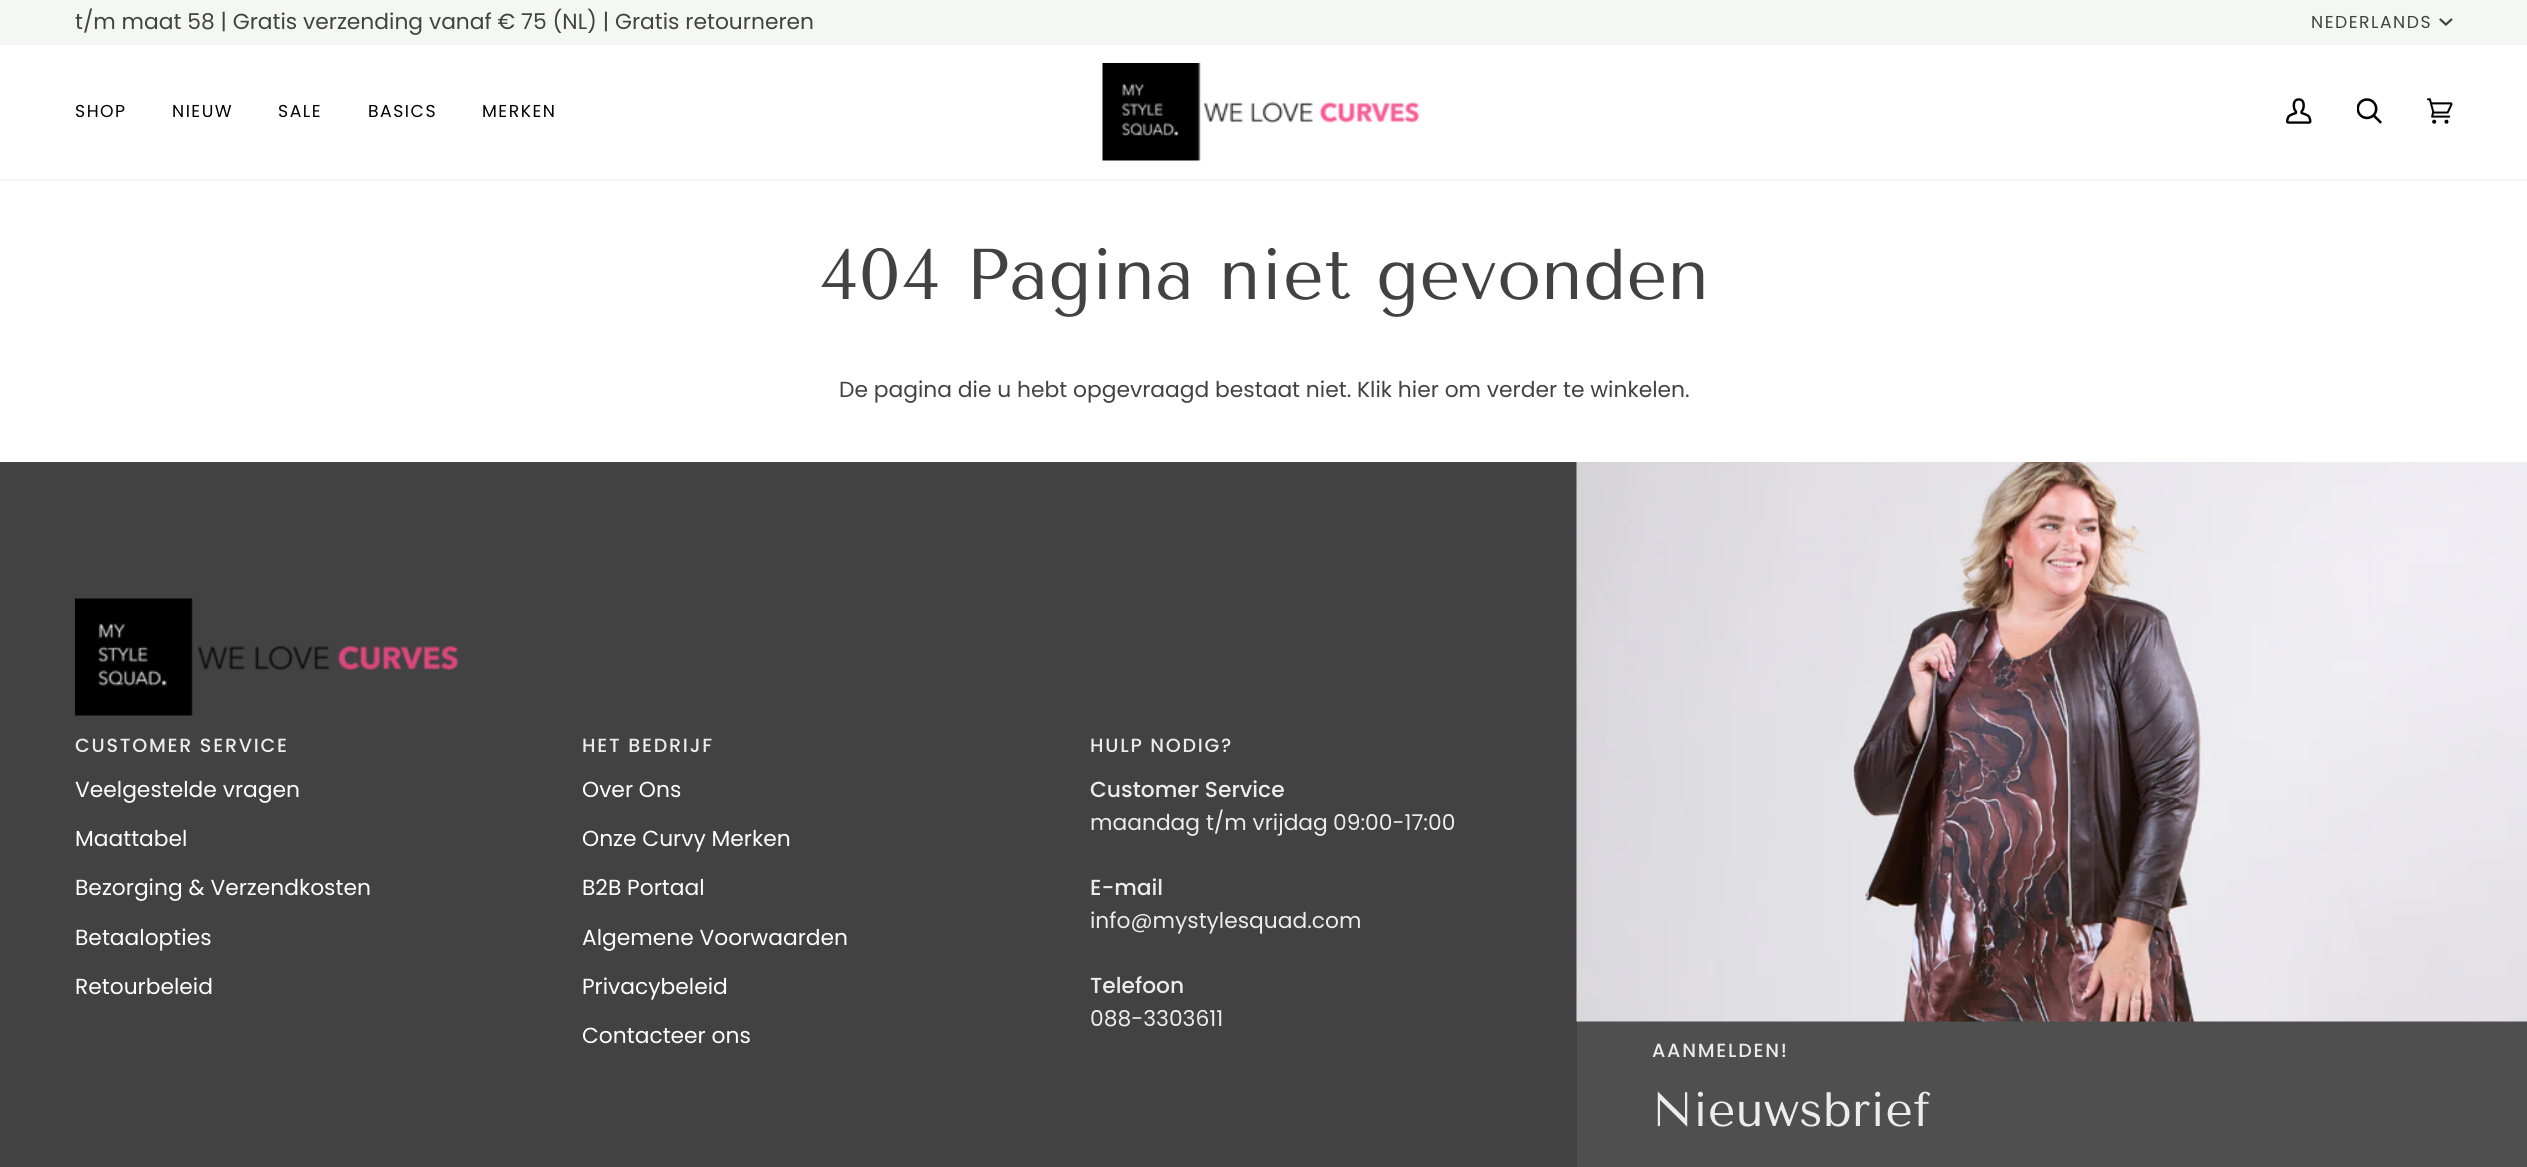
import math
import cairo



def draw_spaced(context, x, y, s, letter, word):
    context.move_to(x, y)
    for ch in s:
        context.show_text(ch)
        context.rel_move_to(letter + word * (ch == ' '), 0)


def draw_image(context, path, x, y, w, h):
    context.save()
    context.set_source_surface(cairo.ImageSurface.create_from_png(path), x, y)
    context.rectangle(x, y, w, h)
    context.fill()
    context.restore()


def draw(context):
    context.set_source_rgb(1, 1, 1)
    context.paint()
    context.set_source_rgb(247 / 255, 245 / 255, 244 / 255)
    context.rectangle(0, 179, 2527, 2)
    context.fill()
    context.set_source_rgb(244 / 255, 247 / 255, 244 / 255)
    context.rectangle(0, 0, 2527, 45)
    context.fill()
    draw_image(context, "images/1.png", 2439, 18, 14, 8)
    draw_image(context, "images/2.png", 1102, 63, 318, 98)
    draw_image(context, "images/3.png", 2286, 98, 26, 26)
    draw_image(context, "images/4.png", 2357, 98, 25, 26)
    draw_image(context, "images/5.png", 2427, 98, 26, 26)
    context.set_source_rgb(66 / 255, 66 / 255, 66 / 255)
    context.rectangle(0, 462, 1577, 705)
    context.fill()
    draw_image(context, "images/6.png", 75, 598, 384, 118)
    context.set_source_rgb(79 / 255, 79 / 255, 79 / 255)
    context.rectangle(1577, 1021, 950, 146)
    context.fill()
    draw_image(context, "images/7.png", 1576, 462, 951, 560)
    context.select_font_face("Poppins")
    context.set_font_size(21.8)
    context.set_source_rgb(66 / 255, 66 / 255, 66 / 255)
    context.move_to(75, 29)
    context.show_text("t/m maat 58 | Gratis verzending vanaf € 75 (NL) | Gratis retourneren")
    context.set_font_size(17.25)
    draw_spaced(context, 2311, 28, "NEDERLANDS", 1.5, 0)
    context.set_source_rgb(0, 0, 0)
    draw_spaced(context, 75, 117, "SHOP", 1.5, 0)
    draw_spaced(context, 172, 117, "NIEUW", 1.5, 0)
    draw_spaced(context, 278, 117, "SALE", 1.5, 0)
    draw_spaced(context, 368, 117, "BASICS", 1.5, 0)
    draw_spaced(context, 482, 117, "MERKEN", 1.5, 0)
    context.select_font_face("Tenor Sans")
    context.set_font_size(71.75)
    context.set_source_rgb(66 / 255, 66 / 255, 66 / 255)
    context.move_to(819, 299)
    context.show_text("404 Pagina niet gevonden")
    context.select_font_face("Poppins")
    context.set_font_size(21.8)
    context.move_to(839, 397)
    context.show_text("De pagina die u hebt opgevraagd bestaat niet. Klik hier om verder te winkelen.")
    context.select_font_face("Poppins Medium")
    context.set_font_size(19.1)
    context.set_source_rgb(236 / 255, 236 / 255, 236 / 255)
    draw_spaced(context, 75, 752, "CUSTOMER SERVICE", 1.75, 0)
    context.select_font_face("Poppins")
    context.set_font_size(21.8)
    context.set_source_rgb(1, 1, 1)
    context.move_to(75, 797)
    context.show_text("Veelgestelde vragen")
    context.move_to(75, 846)
    context.show_text("Maattabel")
    context.move_to(75, 895)
    context.show_text("Bezorging & Verzendkosten")
    context.move_to(75, 945)
    context.show_text("Betaalopties")
    context.move_to(75, 994)
    context.show_text("Retourbeleid")
    context.select_font_face("Poppins Medium")
    context.set_font_size(19.1)
    context.set_source_rgb(236 / 255, 236 / 255, 236 / 255)
    draw_spaced(context, 582, 752, "HET BEDRIJF", 1.75, 0)
    context.select_font_face("Poppins")
    context.set_font_size(21.8)
    context.set_source_rgb(1, 1, 1)
    context.move_to(582, 797)
    context.show_text("Over Ons")
    context.move_to(582, 846)
    context.show_text("Onze Curvy Merken")
    context.move_to(582, 895)
    context.show_text("B2B Portaal")
    context.move_to(582, 945)
    context.show_text("Algemene Voorwaarden")
    context.move_to(582, 994)
    context.show_text("Privacybeleid")
    context.move_to(582, 1043)
    context.show_text("Contacteer ons")
    context.select_font_face("Poppins Medium")
    context.set_font_size(19.1)
    context.set_source_rgb(236 / 255, 236 / 255, 236 / 255)
    draw_spaced(context, 1090, 752, "HULP NODIG?", 1.75, 0)
    context.set_font_size(21.8)
    context.move_to(1090, 797)
    context.show_text("Customer Service")
    context.select_font_face("Poppins")
    context.move_to(1090, 830)
    context.show_text("maandag t/m vrijdag")
    context.move_to(1333, 830)
    context.show_text("09:00-17:00")
    context.select_font_face("Poppins Medium")
    context.move_to(1090, 895)
    context.show_text("E-mail")
    context.select_font_face("Poppins")
    context.move_to(1090, 928)
    context.show_text("info@mystylesquad.com")
    context.select_font_face("Poppins Medium")
    context.move_to(1090, 993)
    context.show_text("Telefoon")
    context.select_font_face("Poppins")
    context.move_to(1090, 1026)
    context.show_text("088-3303611")
    context.select_font_face("Poppins Medium")
    context.set_font_size(19.1)
    draw_spaced(context, 1652, 1057, "AANMELDEN!", 1.75, 0)
    context.select_font_face("Tenor Sans")
    context.set_font_size(48.25)
    context.move_to(1652, 1126)
    context.show_text("Nieuwsbrief")


surface = cairo.ImageSurface(cairo.Format.RGB24, 2527, 1167)
context = cairo.Context(surface)
options = cairo.FontOptions()
options.set_hint_metrics(cairo.HintMetrics.OFF)
options.set_hint_style(cairo.HintStyle.NONE)
context.set_font_options(options)
context.set_miter_limit(4)
draw(context)
surface.write_to_png("out.png")
